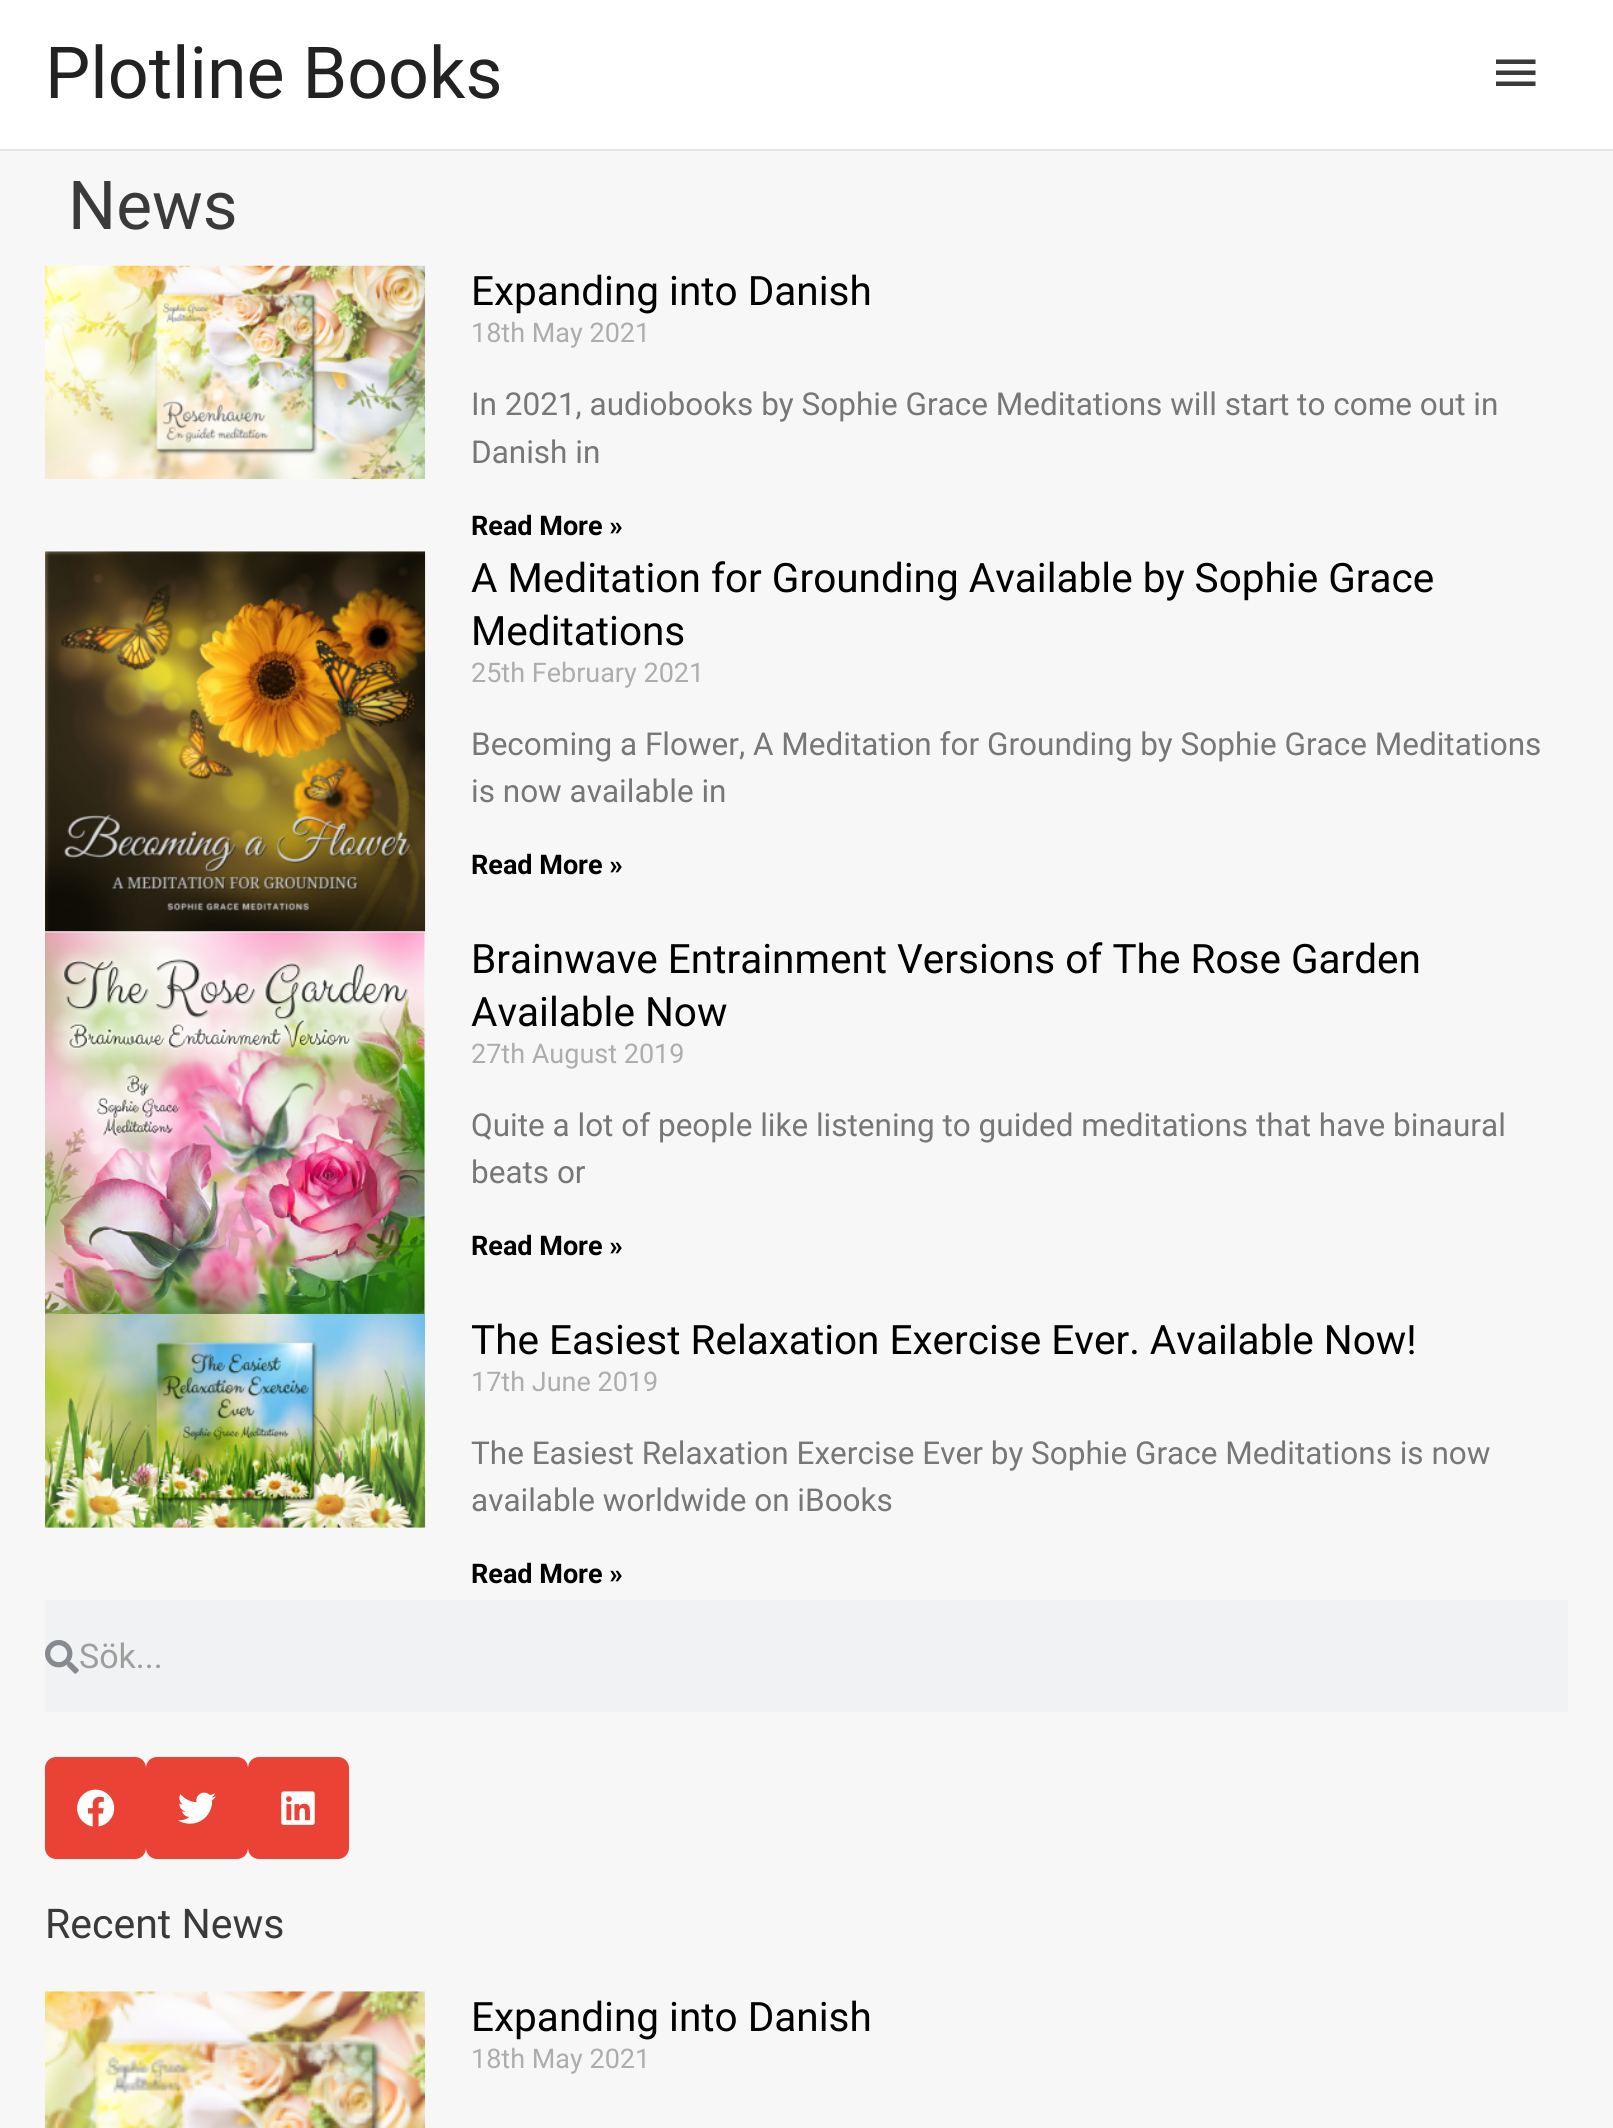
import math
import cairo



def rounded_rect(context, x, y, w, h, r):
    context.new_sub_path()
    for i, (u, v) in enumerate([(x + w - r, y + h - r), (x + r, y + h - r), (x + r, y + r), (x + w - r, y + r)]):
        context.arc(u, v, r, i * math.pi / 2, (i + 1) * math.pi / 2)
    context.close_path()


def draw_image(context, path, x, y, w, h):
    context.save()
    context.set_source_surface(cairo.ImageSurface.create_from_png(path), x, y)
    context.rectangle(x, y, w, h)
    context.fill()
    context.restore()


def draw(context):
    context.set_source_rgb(247 / 255, 247 / 255, 247 / 255)
    context.paint()
    context.set_source_rgb(1, 1, 1)
    context.rectangle(0, 0, 1613, 149)
    context.fill()
    context.set_source_rgb(229 / 255, 229 / 255, 229 / 255)
    context.rectangle(0, 149, 1613, 2)
    context.fill()
    context.set_source_rgb(58 / 255, 58 / 255, 58 / 255)
    context.new_path()
    context.move_to(1496, 59.5)
    context.line_to(1535.5, 59.5)
    context.line_to(1535.5, 64)
    context.line_to(1496, 64)
    context.close_path()
    context.move_to(1496, 75)
    context.line_to(1496, 70.5)
    context.line_to(1535.5, 70.5)
    context.line_to(1535.5, 75)
    context.close_path()
    context.move_to(1496, 86)
    context.line_to(1496, 81.5)
    context.line_to(1535.5, 81.5)
    context.line_to(1535.5, 86)
    context.close_path()
    context.fill()
    draw_image(context, "images/1.png", 45, 265, 381, 215)
    draw_image(context, "images/2.png", 45, 551, 381, 381)
    draw_image(context, "images/3.png", 45, 931, 381, 383)
    draw_image(context, "images/4.png", 45, 1314, 381, 214)
    context.set_source_rgb(241 / 255, 242 / 255, 243 / 255)
    context.rectangle(45, 1600, 1523, 112)
    context.fill()
    draw_image(context, "images/5.png", 45, 1640, 34, 34)
    context.set_source_rgb(234 / 255, 67 / 255, 53 / 255)
    rounded_rect(context, 45, 1757, 101, 102, 11)
    context.fill()
    draw_image(context, "images/6.png", 77, 1789, 38, 38)
    rounded_rect(context, 146, 1757, 102, 102, 11)
    context.fill()
    draw_image(context, "images/7.png", 178, 1792, 38, 32)
    rounded_rect(context, 248, 1757, 101, 102, 11)
    context.fill()
    draw_image(context, "images/8.png", 281, 1791, 34, 34)
    draw_image(context, "images/9.png", 45, 1991, 381, 137)
    context.select_font_face("Roboto")
    context.set_font_size(71.75)
    context.set_source_rgb(34 / 255, 34 / 255, 34 / 255)
    context.move_to(45, 98)
    context.show_text("Plotline Books")
    context.set_font_size(67.5)
    context.set_source_rgb(58 / 255, 58 / 255, 58 / 255)
    context.move_to(68, 229)
    context.show_text("News")
    context.set_font_size(40.5)
    context.set_source_rgb(0, 0, 0)
    context.move_to(471, 305)
    context.show_text("Expanding into Danish")
    context.set_font_size(27)
    context.set_source_rgb(173 / 255, 173 / 255, 173 / 255)
    context.move_to(471, 342)
    context.show_text("18th May 2021")
    context.set_font_size(31.5)
    context.set_source_rgb(119 / 255, 119 / 255, 119 / 255)
    context.move_to(471, 415)
    context.show_text("In 2021, audiobooks by Sophie Grace Meditations will start to come out in")
    context.move_to(471, 463)
    context.show_text("Danish in")
    context.select_font_face("Roboto", cairo.FontSlant.NORMAL, cairo.FontWeight.BOLD)
    context.set_font_size(27)
    context.set_source_rgb(0, 0, 0)
    context.move_to(471, 535)
    context.show_text("Read More »")
    context.select_font_face("Roboto")
    context.set_font_size(40.5)
    context.move_to(471, 592)
    context.show_text("A Meditation for Grounding Available by Sophie Grace")
    context.move_to(471, 645)
    context.show_text("Meditations")
    context.set_font_size(27)
    context.set_source_rgb(173 / 255, 173 / 255, 173 / 255)
    context.move_to(471, 682)
    context.show_text("25th February 2021")
    context.set_font_size(31.5)
    context.set_source_rgb(119 / 255, 119 / 255, 119 / 255)
    context.move_to(471, 755)
    context.show_text("Becoming a Flower, A Meditation for Grounding by Sophie Grace Meditations")
    context.move_to(471, 802)
    context.show_text("is now available in")
    context.select_font_face("Roboto", cairo.FontSlant.NORMAL, cairo.FontWeight.BOLD)
    context.set_font_size(27)
    context.set_source_rgb(0, 0, 0)
    context.move_to(471, 874)
    context.show_text("Read More »")
    context.select_font_face("Roboto")
    context.set_font_size(40.5)
    context.move_to(471, 973)
    context.show_text("Brainwave Entrainment Versions of The Rose Garden")
    context.move_to(471, 1026)
    context.show_text("Available Now")
    context.set_font_size(27)
    context.set_source_rgb(173 / 255, 173 / 255, 173 / 255)
    context.move_to(471, 1063)
    context.show_text("27th August 2019")
    context.set_font_size(31.5)
    context.set_source_rgb(119 / 255, 119 / 255, 119 / 255)
    context.move_to(471, 1136)
    context.show_text("Quite a lot of people like listening to guided meditations that have binaural")
    context.move_to(471, 1183)
    context.show_text("beats or")
    context.select_font_face("Roboto", cairo.FontSlant.NORMAL, cairo.FontWeight.BOLD)
    context.set_font_size(27)
    context.set_source_rgb(0, 0, 0)
    context.move_to(471, 1255)
    context.show_text("Read More »")
    context.select_font_face("Roboto")
    context.set_font_size(40.5)
    context.move_to(471, 1354)
    context.show_text("The Easiest Relaxation Exercise Ever. Available Now!")
    context.set_font_size(27)
    context.set_source_rgb(173 / 255, 173 / 255, 173 / 255)
    context.move_to(471, 1391)
    context.show_text("17th June 2019")
    context.set_font_size(31.5)
    context.set_source_rgb(119 / 255, 119 / 255, 119 / 255)
    context.move_to(471, 1464)
    context.show_text("The Easiest Relaxation Exercise Ever by Sophie Grace Meditations is now")
    context.move_to(471, 1511)
    context.show_text("available worldwide on iBooks")
    context.select_font_face("Roboto", cairo.FontSlant.NORMAL, cairo.FontWeight.BOLD)
    context.set_font_size(27)
    context.set_source_rgb(0, 0, 0)
    context.move_to(471, 1583)
    context.show_text("Read More »")
    context.select_font_face("Roboto")
    context.set_font_size(34)
    context.set_source_rgb(158 / 255, 158 / 255, 158 / 255)
    context.move_to(79, 1668)
    context.show_text("Sök...")
    context.set_font_size(41)
    context.set_source_rgb(58 / 255, 58 / 255, 58 / 255)
    context.move_to(45, 1938)
    context.show_text("Recent News")
    context.set_font_size(40.5)
    context.set_source_rgb(0, 0, 0)
    context.move_to(471, 2031)
    context.show_text("Expanding into Danish")
    context.set_font_size(27)
    context.set_source_rgb(173 / 255, 173 / 255, 173 / 255)
    context.move_to(471, 2068)
    context.show_text("18th May 2021")


surface = cairo.ImageSurface(cairo.Format.RGB24, 1613, 2128)
context = cairo.Context(surface)
options = cairo.FontOptions()
options.set_hint_metrics(cairo.HintMetrics.OFF)
options.set_hint_style(cairo.HintStyle.NONE)
context.set_font_options(options)
context.set_miter_limit(4)
draw(context)
surface.write_to_png("out.png")
